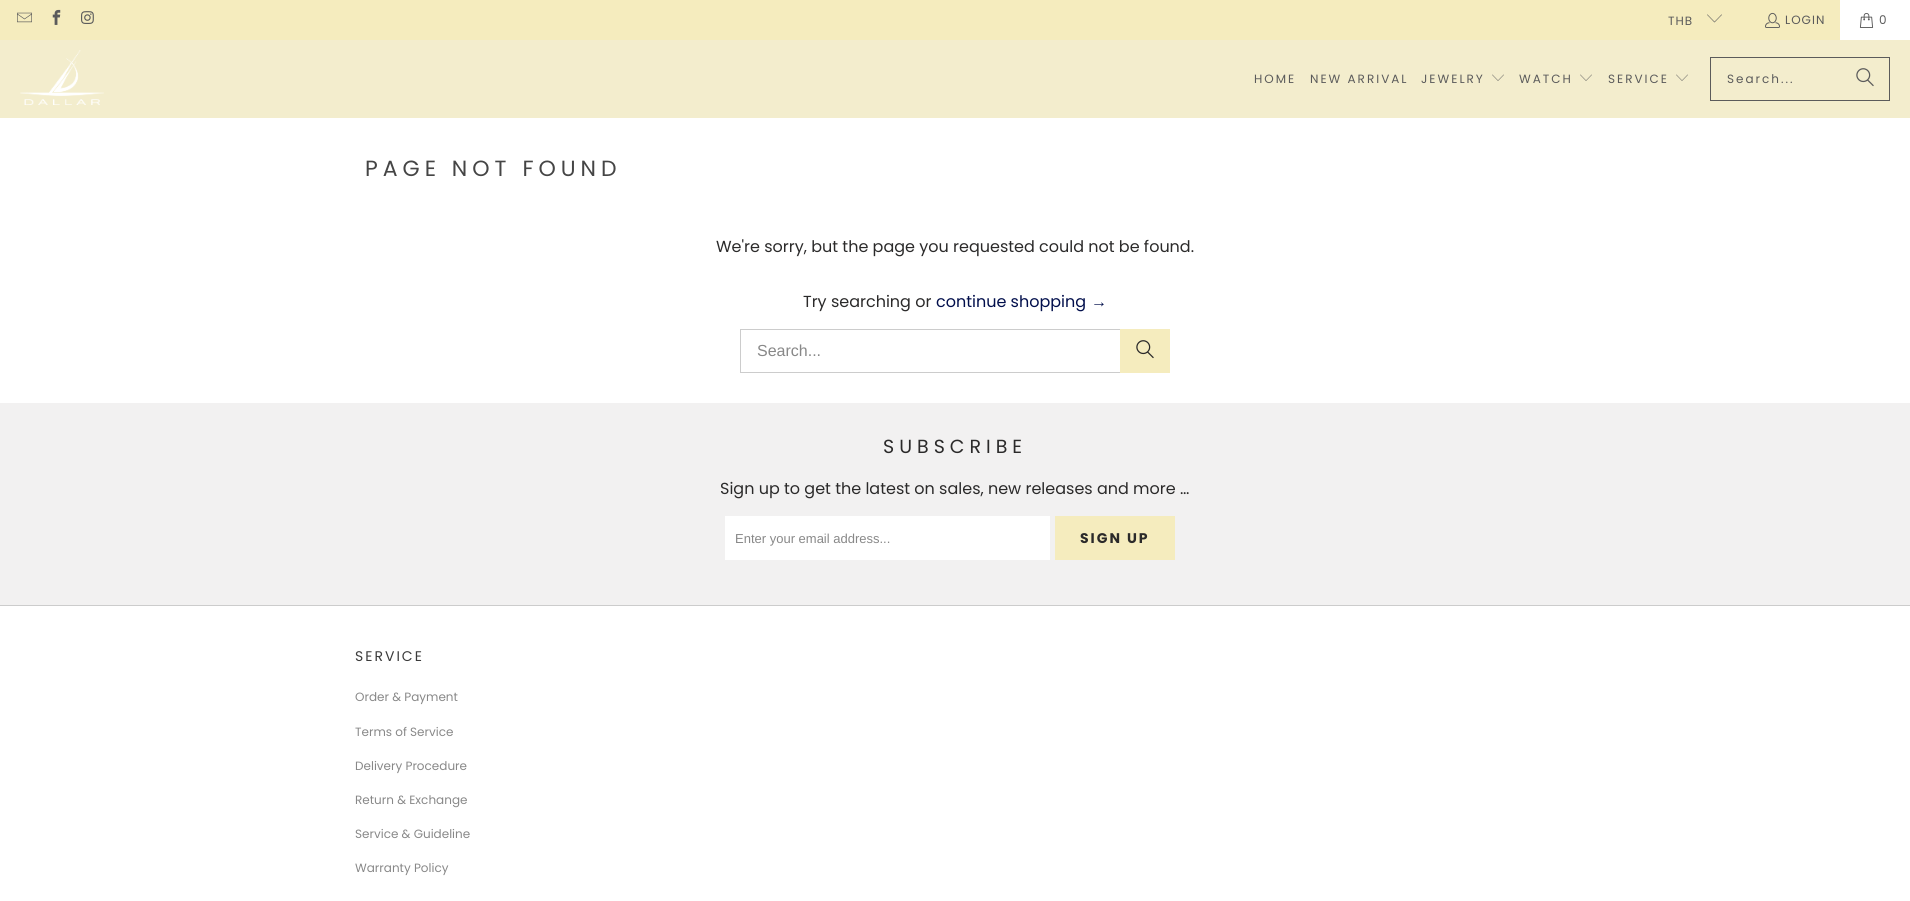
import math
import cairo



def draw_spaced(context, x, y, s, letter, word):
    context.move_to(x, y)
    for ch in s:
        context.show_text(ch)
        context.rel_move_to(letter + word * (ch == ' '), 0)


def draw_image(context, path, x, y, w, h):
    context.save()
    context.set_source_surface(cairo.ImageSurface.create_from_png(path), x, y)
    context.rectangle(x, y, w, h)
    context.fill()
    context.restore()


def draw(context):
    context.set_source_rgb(1, 1, 1)
    context.paint()
    context.set_source_rgb(245 / 255, 236 / 255, 190 / 255)
    context.rectangle(0, 0, 1840, 40)
    context.fill()
    draw_image(context, "images/1.png", 17, 12, 15, 11)
    draw_image(context, "images/2.png", 52, 9, 9, 16)
    draw_image(context, "images/3.png", 81, 11, 13, 13)
    draw_image(context, "images/4.png", 1707, 14, 15, 9)
    draw_image(context, "images/5.png", 1765, 12, 15, 16)
    draw_image(context, "images/6.png", 1859, 13, 15, 15)
    context.set_source_rgb(243 / 255, 237 / 255, 205 / 255)
    context.rectangle(0, 40, 1910, 78)
    context.fill()
    draw_image(context, "images/7.png", 20, 50, 84, 55)
    draw_image(context, "images/8.png", 1492, 74, 12, 7)
    draw_image(context, "images/8.png", 1580, 74, 12, 7)
    draw_image(context, "images/8.png", 1676, 74, 12, 7)
    context.rectangle(1710.5, 57.5, 179, 43)
    context.set_source_rgb(91 / 255, 91 / 255, 91 / 255)
    context.set_line_width(1)
    context.stroke()
    draw_image(context, "images/9.png", 1856, 68, 18, 19)
    context.rectangle(740.5, 329.5, 429, 43)
    context.set_source_rgb(204 / 255, 204 / 255, 204 / 255)
    context.stroke()
    context.set_source_rgb(245 / 255, 236 / 255, 190 / 255)
    context.rectangle(1120, 329, 50, 44)
    context.fill()
    draw_image(context, "images/10.png", 1136, 340, 18, 19)
    context.set_source_rgb(242 / 255, 241 / 255, 241 / 255)
    context.rectangle(0, 403, 1910, 202)
    context.fill()
    context.set_source_rgb(1, 1, 1)
    context.rectangle(725, 516, 325, 44)
    context.fill()
    context.set_source_rgb(245 / 255, 236 / 255, 190 / 255)
    context.rectangle(1055, 516, 120, 44)
    context.fill()
    context.set_source_rgb(204 / 255, 204 / 255, 204 / 255)
    context.rectangle(0, 605, 1910, 1)
    context.fill()
    context.select_font_face("Poppins")
    context.set_font_size(12)
    context.set_source_rgb(91 / 255, 91 / 255, 91 / 255)
    draw_spaced(context, 1668, 25, "THB", 1, 0)
    draw_spaced(context, 1785, 24, "LOGIN", 1, 0)
    draw_spaced(context, 1879, 24, "0", 1, 0)
    draw_spaced(context, 1254, 83, "HOME", 2, 0)
    draw_spaced(context, 1310, 83, "NEW ARRIVAL", 2, 0)
    draw_spaced(context, 1421, 83, "JEWELRY", 2, 0)
    draw_spaced(context, 1519, 83, "WATCH", 2, 0)
    draw_spaced(context, 1608, 83, "SERVICE", 2, 0)
    draw_spaced(context, 1727, 83, "Search...", 2, 0)
    context.set_font_size(22)
    context.set_source_rgb(69 / 255, 69 / 255, 69 / 255)
    draw_spaced(context, 365, 176, "PAGE NOT FOUND", 5, 0)
    context.set_font_size(16)
    context.set_source_rgb(43 / 255, 42 / 255, 42 / 255)
    context.move_to(716, 252)
    context.show_text("We're sorry, but the page you requested could not be found.")
    context.move_to(803, 307)
    context.show_text("Try searching or")
    context.set_source_rgb(2 / 255, 15 / 255, 76 / 255)
    context.move_to(936, 307)
    context.show_text("continue shopping")
    context.select_font_face("Liberation Sans")
    context.move_to(1091, 307)
    context.show_text("→")
    context.set_source_rgb(136 / 255, 136 / 255, 136 / 255)
    context.move_to(757, 356)
    context.show_text("Search...")
    context.select_font_face("Poppins")
    context.set_font_size(19)
    context.set_source_rgb(43 / 255, 42 / 255, 42 / 255)
    draw_spaced(context, 883, 453, "SUBSCRIBE", 5, 0)
    context.set_font_size(16)
    context.move_to(720, 494)
    context.show_text("Sign up to get the latest on sales, new releases and more …")
    context.select_font_face("Liberation Sans")
    context.set_font_size(13)
    context.set_source_rgb(136 / 255, 136 / 255, 136 / 255)
    context.move_to(735, 543)
    context.show_text("Enter your email address...")
    context.select_font_face("Poppins", cairo.FontSlant.NORMAL, cairo.FontWeight.BOLD)
    context.set_font_size(14)
    context.set_source_rgb(43 / 255, 42 / 255, 42 / 255)
    draw_spaced(context, 1080, 543, "SIGN UP", 2, 0)
    context.select_font_face("Poppins")
    context.set_source_rgb(59 / 255, 59 / 255, 59 / 255)
    draw_spaced(context, 355, 661, "SERVICE", 2, 0)
    context.set_font_size(12)
    context.set_source_rgb(136 / 255, 136 / 255, 136 / 255)
    context.move_to(355, 701)
    context.show_text("Order & Payment")
    context.move_to(355, 736)
    context.show_text("Terms of Service")
    context.move_to(355, 770)
    context.show_text("Delivery Procedure")
    context.move_to(355, 804)
    context.show_text("Return & Exchange")
    context.move_to(355, 838)
    context.show_text("Service & Guideline")
    context.move_to(355, 872)
    context.show_text("Warranty Policy")


surface = cairo.ImageSurface(cairo.Format.RGB24, 1910, 901)
context = cairo.Context(surface)
options = cairo.FontOptions()
options.set_hint_metrics(cairo.HintMetrics.OFF)
options.set_hint_style(cairo.HintStyle.NONE)
context.set_font_options(options)
context.set_miter_limit(4)
draw(context)
surface.write_to_png("out.png")
